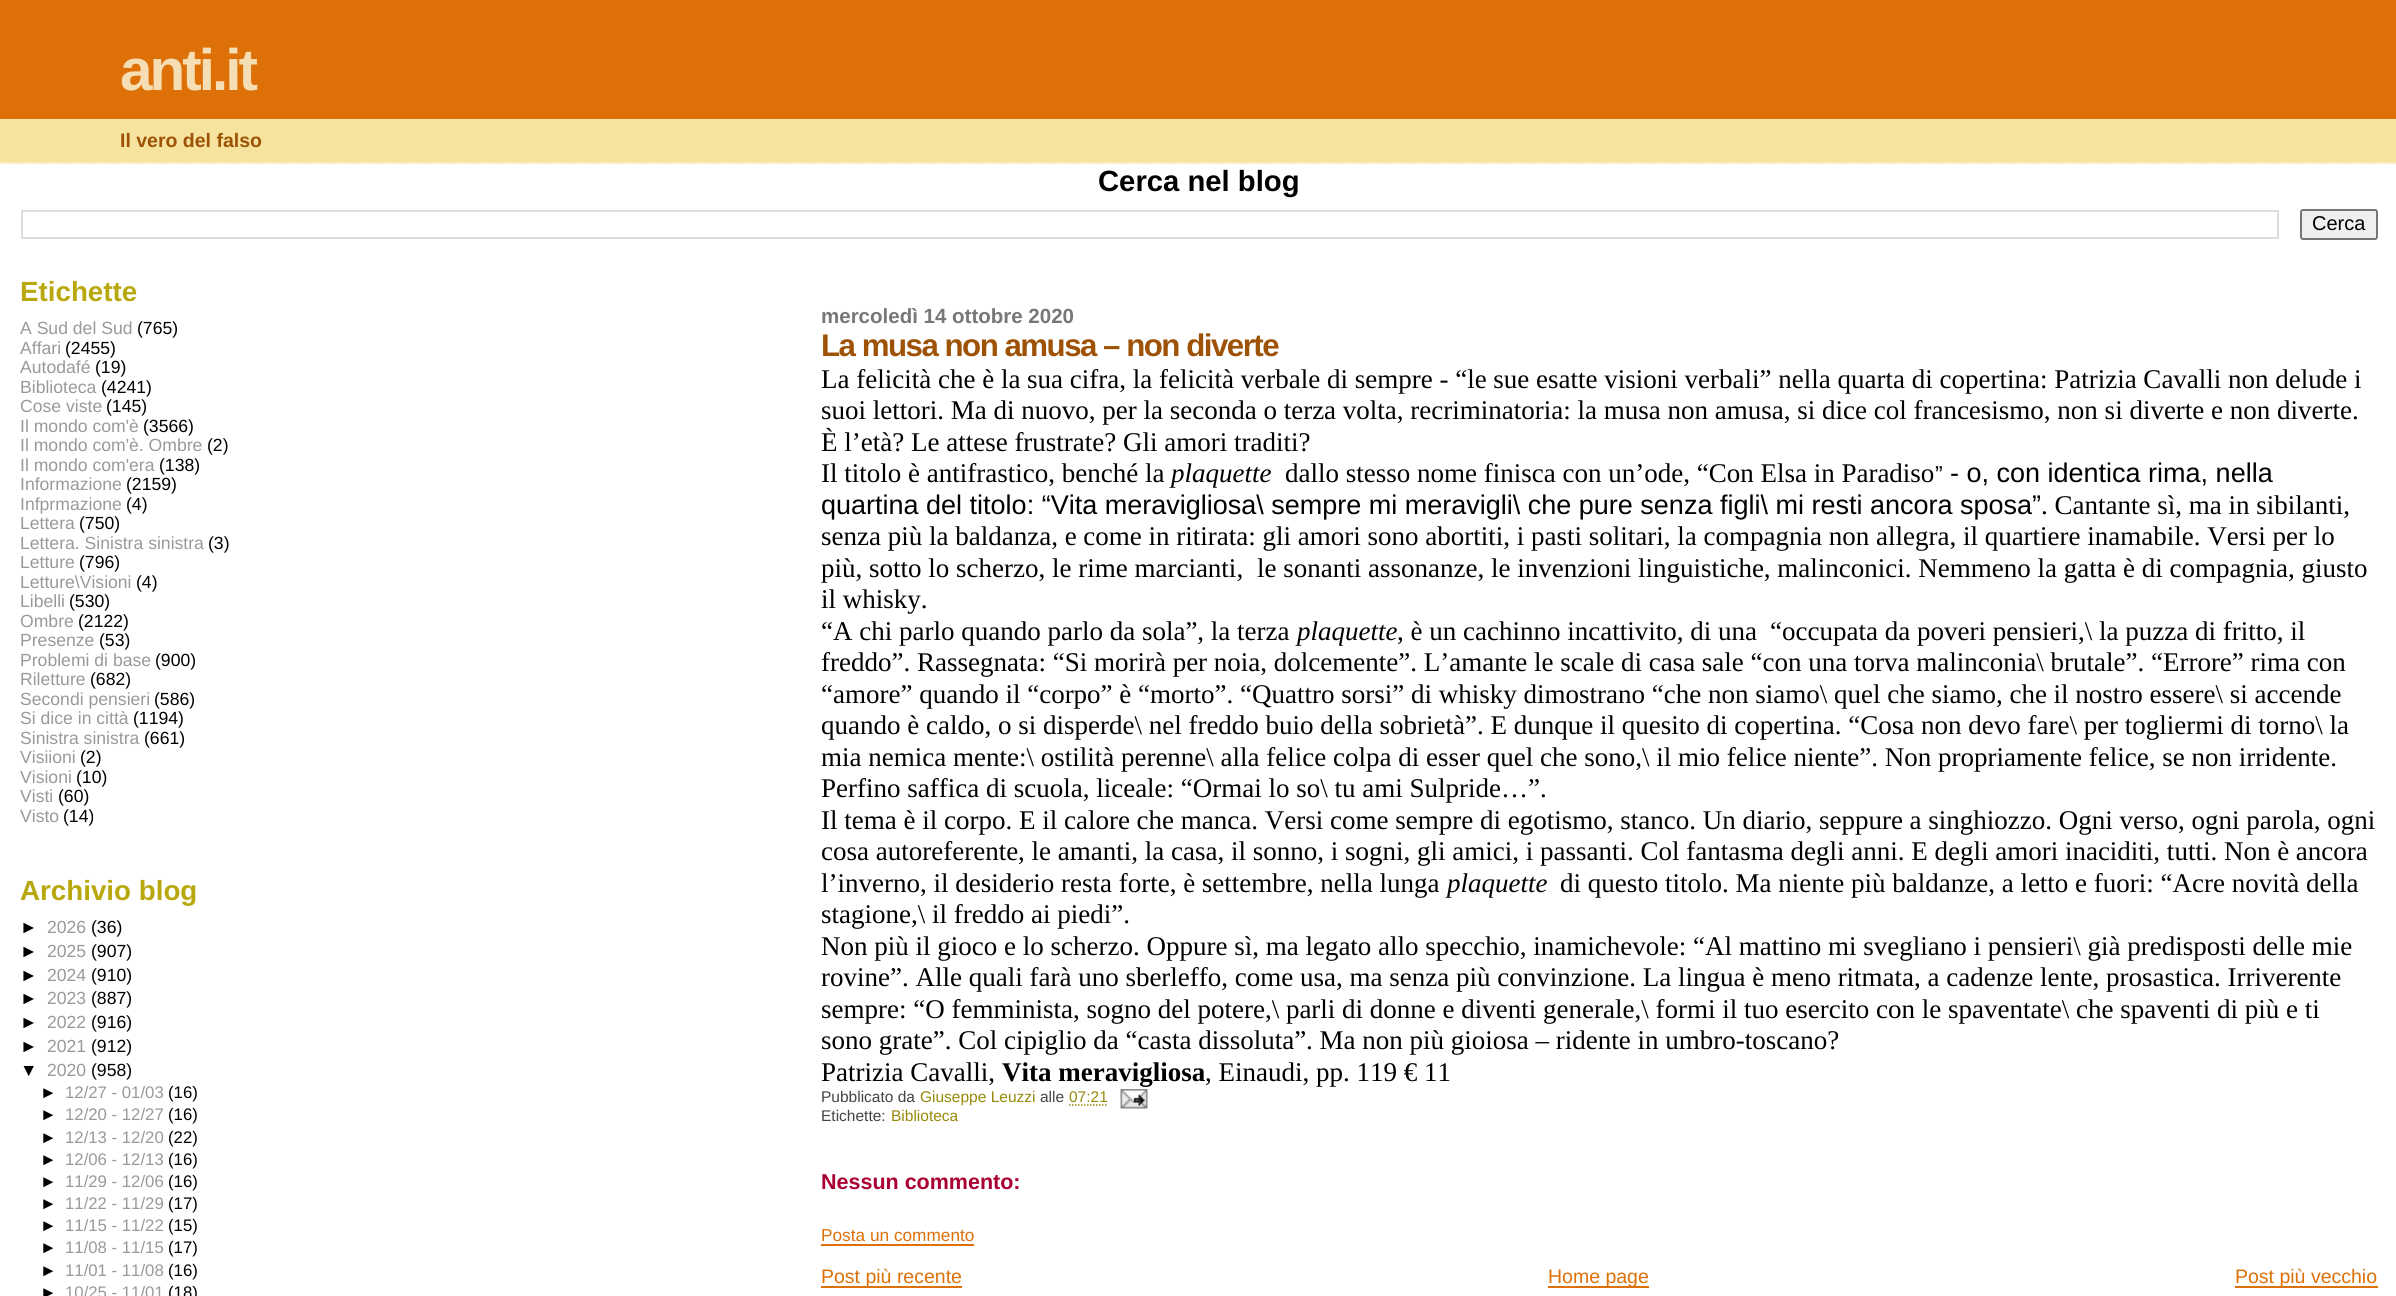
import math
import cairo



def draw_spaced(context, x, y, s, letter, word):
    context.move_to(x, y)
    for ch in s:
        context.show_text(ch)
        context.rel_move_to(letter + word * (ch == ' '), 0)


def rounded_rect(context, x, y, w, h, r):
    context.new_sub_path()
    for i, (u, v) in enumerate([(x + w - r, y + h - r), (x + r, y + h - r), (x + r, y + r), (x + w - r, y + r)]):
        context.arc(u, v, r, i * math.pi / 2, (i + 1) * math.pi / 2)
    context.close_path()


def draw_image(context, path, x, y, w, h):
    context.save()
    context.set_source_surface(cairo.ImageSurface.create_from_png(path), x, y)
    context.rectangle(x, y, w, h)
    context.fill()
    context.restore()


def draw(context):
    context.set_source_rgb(1, 1, 1)
    context.paint()
    context.set_source_rgb(245 / 255, 227 / 255, 158 / 255)
    context.rectangle(0, 119, 2396, 45)
    context.fill()
    context.new_path()
    context.move_to(0, 163)
    context.line_to(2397, 163)
    context.set_source_rgb(1, 1, 1)
    context.set_line_width(1.5)
    context.set_dash([1.5, 1.5])
    context.stroke()
    context.set_source_rgb(222 / 255, 112 / 255, 8 / 255)
    context.rectangle(0, 0, 2396, 119)
    context.fill()
    context.rectangle(22, 211, 2256, 27)
    context.set_source_rgb(221 / 255, 221 / 255, 221 / 255)
    context.set_line_width(2)
    context.set_dash([])
    context.stroke()
    context.set_source_rgb(239 / 255, 239 / 255, 239 / 255)
    rounded_rect(context, 2301, 210, 76, 29, 2)
    context.fill_preserve()
    context.set_source_rgb(118 / 255, 118 / 255, 118 / 255)
    context.stroke()
    context.new_path()
    context.move_to(1069, 1105)
    context.line_to(1108, 1105)
    context.set_source_rgb(150 / 255, 138 / 255, 10 / 255)
    context.set_line_width(1.5)
    context.set_dash([1.5, 1.5])
    context.stroke()
    draw_image(context, "images/1.png", 1120, 1089, 28, 20)
    context.set_source_rgb(222 / 255, 112 / 255, 8 / 255)
    context.rectangle(821, 1244, 153, 2)
    context.fill()
    context.rectangle(821, 1286, 141, 2)
    context.fill()
    context.rectangle(1548, 1286, 101, 2)
    context.fill()
    context.rectangle(2235, 1286, 143, 2)
    context.fill()
    context.select_font_face("Liberation Sans", cairo.FontSlant.NORMAL, cairo.FontWeight.BOLD)
    context.set_font_size(58.5)
    context.set_source_rgb(245 / 255, 222 / 255, 179 / 255)
    draw_spaced(context, 120, 90, "anti.it", -3, 0)
    context.set_font_size(19.5)
    context.set_source_rgb(158 / 255, 82 / 255, 5 / 255)
    context.move_to(120, 147)
    context.show_text("Il vero del falso")
    context.set_font_size(29.25)
    context.set_source_rgb(0, 0, 0)
    context.move_to(1098, 191)
    context.show_text("Cerca nel blog")
    context.select_font_face("Liberation Sans")
    context.set_font_size(20)
    context.move_to(2312, 230)
    context.show_text("Cerca")
    context.select_font_face("Liberation Sans", cairo.FontSlant.NORMAL, cairo.FontWeight.BOLD)
    context.set_font_size(27.75)
    context.set_source_rgb(184 / 255, 168 / 255, 13 / 255)
    context.move_to(20, 301)
    context.show_text("Etichette")
    context.select_font_face("Liberation Sans")
    context.set_font_size(17.6)
    context.set_source_rgb(153 / 255, 153 / 255, 153 / 255)
    context.move_to(20, 334)
    context.show_text("A Sud del Sud")
    context.set_source_rgb(0, 0, 0)
    context.move_to(137, 334)
    context.show_text("(765)")
    context.set_source_rgb(153 / 255, 153 / 255, 153 / 255)
    context.move_to(20, 354)
    context.show_text("Affari")
    context.set_source_rgb(0, 0, 0)
    context.move_to(65, 354)
    context.show_text("(2455)")
    context.set_source_rgb(153 / 255, 153 / 255, 153 / 255)
    context.move_to(20, 373)
    context.show_text("Autodafé")
    context.set_source_rgb(0, 0, 0)
    context.move_to(95, 373)
    context.show_text("(19)")
    context.set_source_rgb(153 / 255, 153 / 255, 153 / 255)
    context.move_to(20, 393)
    context.show_text("Biblioteca")
    context.set_source_rgb(0, 0, 0)
    context.move_to(101, 393)
    context.show_text("(4241)")
    context.set_source_rgb(153 / 255, 153 / 255, 153 / 255)
    context.move_to(20, 412)
    context.show_text("Cose viste")
    context.set_source_rgb(0, 0, 0)
    context.move_to(106, 412)
    context.show_text("(145)")
    context.set_source_rgb(153 / 255, 153 / 255, 153 / 255)
    context.move_to(20, 432)
    context.show_text("Il mondo com'è")
    context.set_source_rgb(0, 0, 0)
    context.move_to(143, 432)
    context.show_text("(3566)")
    context.set_source_rgb(153 / 255, 153 / 255, 153 / 255)
    context.move_to(20, 451)
    context.show_text("Il mondo com'è. Ombre")
    context.set_source_rgb(0, 0, 0)
    context.move_to(207, 451)
    context.show_text("(2)")
    context.set_source_rgb(153 / 255, 153 / 255, 153 / 255)
    context.move_to(20, 471)
    context.show_text("Il mondo com'era")
    context.set_source_rgb(0, 0, 0)
    context.move_to(159, 471)
    context.show_text("(138)")
    context.set_source_rgb(153 / 255, 153 / 255, 153 / 255)
    context.move_to(20, 490)
    context.show_text("Informazione")
    context.set_source_rgb(0, 0, 0)
    context.move_to(126, 490)
    context.show_text("(2159)")
    context.set_source_rgb(153 / 255, 153 / 255, 153 / 255)
    context.move_to(20, 510)
    context.show_text("Infprmazione")
    context.set_source_rgb(0, 0, 0)
    context.move_to(126, 510)
    context.show_text("(4)")
    context.set_source_rgb(153 / 255, 153 / 255, 153 / 255)
    context.move_to(20, 529)
    context.show_text("Lettera")
    context.set_source_rgb(0, 0, 0)
    context.move_to(79, 529)
    context.show_text("(750)")
    context.set_source_rgb(153 / 255, 153 / 255, 153 / 255)
    context.move_to(20, 549)
    context.show_text("Lettera. Sinistra sinistra")
    context.set_source_rgb(0, 0, 0)
    context.move_to(208, 549)
    context.show_text("(3)")
    context.set_source_rgb(153 / 255, 153 / 255, 153 / 255)
    context.move_to(20, 568)
    context.show_text("Letture")
    context.set_source_rgb(0, 0, 0)
    context.move_to(79, 568)
    context.show_text("(796)")
    context.set_source_rgb(153 / 255, 153 / 255, 153 / 255)
    context.move_to(20, 588)
    context.show_text("Letture\\Visioni")
    context.set_source_rgb(0, 0, 0)
    context.move_to(136, 588)
    context.show_text("(4)")
    context.set_source_rgb(153 / 255, 153 / 255, 153 / 255)
    context.move_to(20, 607)
    context.show_text("Libelli")
    context.set_source_rgb(0, 0, 0)
    context.move_to(69, 607)
    context.show_text("(530)")
    context.set_source_rgb(153 / 255, 153 / 255, 153 / 255)
    context.move_to(20, 627)
    context.show_text("Ombre")
    context.set_source_rgb(0, 0, 0)
    context.move_to(78, 627)
    context.show_text("(2122)")
    context.set_source_rgb(153 / 255, 153 / 255, 153 / 255)
    context.move_to(20, 646)
    context.show_text("Presenze")
    context.set_source_rgb(0, 0, 0)
    context.move_to(99, 646)
    context.show_text("(53)")
    context.set_source_rgb(153 / 255, 153 / 255, 153 / 255)
    context.move_to(20, 666)
    context.show_text("Problemi di base")
    context.set_source_rgb(0, 0, 0)
    context.move_to(155, 666)
    context.show_text("(900)")
    context.set_source_rgb(153 / 255, 153 / 255, 153 / 255)
    context.move_to(20, 685)
    context.show_text("Riletture")
    context.set_source_rgb(0, 0, 0)
    context.move_to(90, 685)
    context.show_text("(682)")
    context.set_source_rgb(153 / 255, 153 / 255, 153 / 255)
    context.move_to(20, 705)
    context.show_text("Secondi pensieri")
    context.set_source_rgb(0, 0, 0)
    context.move_to(154, 705)
    context.show_text("(586)")
    context.set_source_rgb(153 / 255, 153 / 255, 153 / 255)
    context.move_to(20, 724)
    context.show_text("Si dice in città")
    context.set_source_rgb(0, 0, 0)
    context.move_to(133, 724)
    context.show_text("(1194)")
    context.set_source_rgb(153 / 255, 153 / 255, 153 / 255)
    context.move_to(20, 744)
    context.show_text("Sinistra sinistra")
    context.set_source_rgb(0, 0, 0)
    context.move_to(144, 744)
    context.show_text("(661)")
    context.set_source_rgb(153 / 255, 153 / 255, 153 / 255)
    context.move_to(20, 763)
    context.show_text("Visiioni")
    context.set_source_rgb(0, 0, 0)
    context.move_to(80, 763)
    context.show_text("(2)")
    context.set_source_rgb(153 / 255, 153 / 255, 153 / 255)
    context.move_to(20, 783)
    context.show_text("Visioni")
    context.set_source_rgb(0, 0, 0)
    context.move_to(76, 783)
    context.show_text("(10)")
    context.set_source_rgb(153 / 255, 153 / 255, 153 / 255)
    context.move_to(20, 802)
    context.show_text("Visti")
    context.set_source_rgb(0, 0, 0)
    context.move_to(58, 802)
    context.show_text("(60)")
    context.set_source_rgb(153 / 255, 153 / 255, 153 / 255)
    context.move_to(20, 822)
    context.show_text("Visto")
    context.set_source_rgb(0, 0, 0)
    context.move_to(63, 822)
    context.show_text("(14)")
    context.select_font_face("Liberation Sans", cairo.FontSlant.NORMAL, cairo.FontWeight.BOLD)
    context.set_font_size(27.75)
    context.set_source_rgb(184 / 255, 168 / 255, 13 / 255)
    context.move_to(20, 900)
    context.show_text("Archivio blog")
    context.select_font_face("Liberation Sans")
    context.set_font_size(17.6)
    context.set_source_rgb(0, 0, 0)
    context.move_to(20, 933)
    context.show_text("►")
    context.set_source_rgb(153 / 255, 153 / 255, 153 / 255)
    context.move_to(47, 933)
    context.show_text("2026")
    context.set_source_rgb(0, 0, 0)
    context.move_to(91, 933)
    context.show_text("(36)")
    context.move_to(20, 957)
    context.show_text("►")
    context.set_source_rgb(153 / 255, 153 / 255, 153 / 255)
    context.move_to(47, 957)
    context.show_text("2025")
    context.set_source_rgb(0, 0, 0)
    context.move_to(91, 957)
    context.show_text("(907)")
    context.move_to(20, 981)
    context.show_text("►")
    context.set_source_rgb(153 / 255, 153 / 255, 153 / 255)
    context.move_to(47, 981)
    context.show_text("2024")
    context.set_source_rgb(0, 0, 0)
    context.move_to(91, 981)
    context.show_text("(910)")
    context.move_to(20, 1004)
    context.show_text("►")
    context.set_source_rgb(153 / 255, 153 / 255, 153 / 255)
    context.move_to(47, 1004)
    context.show_text("2023")
    context.set_source_rgb(0, 0, 0)
    context.move_to(91, 1004)
    context.show_text("(887)")
    context.move_to(20, 1028)
    context.show_text("►")
    context.set_source_rgb(153 / 255, 153 / 255, 153 / 255)
    context.move_to(47, 1028)
    context.show_text("2022")
    context.set_source_rgb(0, 0, 0)
    context.move_to(91, 1028)
    context.show_text("(916)")
    context.move_to(20, 1052)
    context.show_text("►")
    context.set_source_rgb(153 / 255, 153 / 255, 153 / 255)
    context.move_to(47, 1052)
    context.show_text("2021")
    context.set_source_rgb(0, 0, 0)
    context.move_to(91, 1052)
    context.show_text("(912)")
    context.move_to(20, 1076)
    context.show_text("▼")
    context.set_source_rgb(153 / 255, 153 / 255, 153 / 255)
    context.move_to(47, 1076)
    context.show_text("2020")
    context.set_source_rgb(0, 0, 0)
    context.move_to(91, 1076)
    context.show_text("(958)")
    context.set_font_size(16.75)
    context.move_to(40, 1098)
    context.show_text("►")
    context.set_source_rgb(153 / 255, 153 / 255, 153 / 255)
    context.move_to(65, 1098)
    context.show_text("12/27 - 01/03")
    context.set_source_rgb(0, 0, 0)
    context.move_to(168, 1098)
    context.show_text("(16)")
    context.move_to(40, 1120)
    context.show_text("►")
    context.set_source_rgb(153 / 255, 153 / 255, 153 / 255)
    context.move_to(65, 1120)
    context.show_text("12/20 - 12/27")
    context.set_source_rgb(0, 0, 0)
    context.move_to(168, 1120)
    context.show_text("(16)")
    context.move_to(40, 1143)
    context.show_text("►")
    context.set_source_rgb(153 / 255, 153 / 255, 153 / 255)
    context.move_to(65, 1143)
    context.show_text("12/13 - 12/20")
    context.set_source_rgb(0, 0, 0)
    context.move_to(168, 1143)
    context.show_text("(22)")
    context.move_to(40, 1165)
    context.show_text("►")
    context.set_source_rgb(153 / 255, 153 / 255, 153 / 255)
    context.move_to(65, 1165)
    context.show_text("12/06 - 12/13")
    context.set_source_rgb(0, 0, 0)
    context.move_to(168, 1165)
    context.show_text("(16)")
    context.move_to(40, 1187)
    context.show_text("►")
    context.set_source_rgb(153 / 255, 153 / 255, 153 / 255)
    context.move_to(65, 1187)
    context.show_text("11/29 - 12/06")
    context.set_source_rgb(0, 0, 0)
    context.move_to(168, 1187)
    context.show_text("(16)")
    context.move_to(40, 1209)
    context.show_text("►")
    context.set_source_rgb(153 / 255, 153 / 255, 153 / 255)
    context.move_to(65, 1209)
    context.show_text("11/22 - 11/29")
    context.set_source_rgb(0, 0, 0)
    context.move_to(168, 1209)
    context.show_text("(17)")
    context.move_to(40, 1231)
    context.show_text("►")
    context.set_source_rgb(153 / 255, 153 / 255, 153 / 255)
    context.move_to(65, 1231)
    context.show_text("11/15 - 11/22")
    context.set_source_rgb(0, 0, 0)
    context.move_to(168, 1231)
    context.show_text("(15)")
    context.move_to(40, 1253)
    context.show_text("►")
    context.set_source_rgb(153 / 255, 153 / 255, 153 / 255)
    context.move_to(65, 1253)
    context.show_text("11/08 - 11/15")
    context.set_source_rgb(0, 0, 0)
    context.move_to(168, 1253)
    context.show_text("(17)")
    context.move_to(40, 1276)
    context.show_text("►")
    context.set_source_rgb(153 / 255, 153 / 255, 153 / 255)
    context.move_to(65, 1276)
    context.show_text("11/01 - 11/08")
    context.set_source_rgb(0, 0, 0)
    context.move_to(168, 1276)
    context.show_text("(16)")
    context.move_to(40, 1298)
    context.show_text("►")
    context.set_source_rgb(153 / 255, 153 / 255, 153 / 255)
    context.move_to(65, 1298)
    context.show_text("10/25 - 11/01")
    context.set_source_rgb(0, 0, 0)
    context.move_to(168, 1298)
    context.show_text("(18)")
    context.select_font_face("Liberation Sans", cairo.FontSlant.NORMAL, cairo.FontWeight.BOLD)
    context.set_font_size(20.5)
    context.set_source_rgb(119 / 255, 119 / 255, 119 / 255)
    context.move_to(821, 323)
    context.show_text("mercoledì 14 ottobre 2020")
    context.set_font_size(31.25)
    context.set_source_rgb(158 / 255, 82 / 255, 5 / 255)
    draw_spaced(context, 821, 356, "La musa non amusa – non diverte", -1.5, 0)
    context.select_font_face("Liberation Serif")
    context.set_font_size(27)
    context.set_source_rgb(0, 0, 0)
    context.move_to(821, 388)
    context.show_text("La felicità che è la sua cifra, la felicità verbale di sempre - “le sue esatte visioni verbali” nella quarta di copertina: Patrizia Cavalli non delude i")
    context.move_to(821, 419)
    context.show_text("suoi lettori. Ma di nuovo, per la seconda o terza volta, recriminatoria: la musa non amusa, si dice col francesismo, non si diverte e non diverte.")
    context.move_to(821, 451)
    context.show_text("È l’età? Le attese frustrate? Gli amori traditi?")
    context.move_to(821, 482)
    context.show_text("Il titolo è antifrastico, benché la")
    context.select_font_face("Liberation Serif", cairo.FontSlant.ITALIC)
    context.move_to(1171, 482)
    context.show_text("plaquette")
    context.select_font_face("Liberation Serif")
    context.move_to(1285, 482)
    context.show_text("dallo stesso nome finisca con un’ode, “Con Elsa in Paradiso")
    context.select_font_face("Liberation Sans")
    context.set_font_size(23)
    context.move_to(1935, 482)
    context.show_text("”")
    context.set_font_size(27)
    context.move_to(1950, 482)
    context.show_text("- o, con identica rima, nella")
    context.move_to(821, 514)
    context.show_text("quartina del titolo: “Vita meravigliosa\\ sempre mi meravigli\\ che pure senza figli\\ mi resti ancora sposa”")
    context.select_font_face("Liberation Serif")
    context.move_to(2041, 514)
    context.show_text(". Cantante sì, ma in sibilanti,")
    context.move_to(821, 545)
    context.show_text("senza più la baldanza, e come in ritirata: gli amori sono abortiti, i pasti solitari, la compagnia non allegra, il quartiere inamabile. Versi per lo")
    context.move_to(821, 577)
    context.show_text("più, sotto lo scherzo, le rime marcianti,")
    context.move_to(1257, 577)
    context.show_text("le sonanti assonanze, le invenzioni linguistiche, malinconici. Nemmeno la gatta è di compagnia, giusto")
    context.move_to(821, 608)
    context.show_text("il whisky.")
    context.move_to(821, 640)
    context.show_text("“A chi parlo quando parlo da sola”, la terza")
    context.select_font_face("Liberation Serif", cairo.FontSlant.ITALIC)
    context.move_to(1297, 640)
    context.show_text("plaquette")
    context.select_font_face("Liberation Serif")
    context.move_to(1397, 640)
    context.show_text(", è un cachinno incattivito, di una")
    context.move_to(1770, 640)
    context.show_text("“occupata da poveri pensieri,\\ la puzza di fritto, il")
    context.move_to(821, 671)
    context.show_text("freddo”. Rassegnata: “Si morirà per noia, dolcemente”. L’amante le scale di casa sale “con una torva malinconia\\ brutale”. “Errore” rima con")
    context.move_to(821, 703)
    context.show_text("“amore” quando il “corpo” è “morto”. “Quattro sorsi” di whisky dimostrano “che non siamo\\ quel che siamo, che il nostro essere\\ si accende")
    context.move_to(821, 734)
    context.show_text("quando è caldo, o si disperde\\ nel freddo buio della sobrietà”. E dunque il quesito di copertina. “Cosa non devo fare\\ per togliermi di torno\\ la")
    context.move_to(821, 766)
    context.show_text("mia nemica mente:\\ ostilità perenne\\ alla felice colpa di esser quel che sono,\\ il mio felice niente”. Non propriamente felice, se non irridente.")
    context.move_to(821, 797)
    context.show_text("Perfino saffica di scuola, liceale: “Ormai lo so\\ tu ami Sulpride…”.")
    context.move_to(821, 829)
    context.show_text("Il tema è il corpo. E il calore che manca. Versi come sempre di egotismo, stanco. Un diario, seppure a singhiozzo. Ogni verso, ogni parola, ogni")
    context.move_to(821, 860)
    context.show_text("cosa autoreferente, le amanti, la casa, il sonno, i sogni, gli amici, i passanti. Col fantasma degli anni. E degli amori inaciditi, tutti. Non è ancora")
    context.move_to(821, 892)
    context.show_text("l’inverno, il desiderio resta forte, è settembre, nella lunga")
    context.select_font_face("Liberation Serif", cairo.FontSlant.ITALIC)
    context.move_to(1447, 892)
    context.show_text("plaquette")
    context.select_font_face("Liberation Serif")
    context.move_to(1560, 892)
    context.show_text("di questo titolo. Ma niente più baldanze, a letto e fuori: “Acre novità della")
    context.move_to(821, 923)
    context.show_text("stagione,\\ il freddo ai piedi”.")
    context.move_to(821, 955)
    context.show_text("Non più il gioco e lo scherzo. Oppure sì, ma legato allo specchio, inamichevole: “Al mattino mi svegliano i pensieri\\ già predisposti delle mie")
    context.move_to(821, 986)
    context.show_text("rovine”. Alle quali farà uno sberleffo, come usa, ma senza più convinzione. La lingua è meno ritmata, a cadenze lente, prosastica. Irriverente")
    context.move_to(821, 1018)
    context.show_text("sempre: “O femminista, sogno del potere,\\ parli di donne e diventi generale,\\ formi il tuo esercito con le spaventate\\ che spaventi di più e ti")
    context.move_to(821, 1049)
    context.show_text("sono grate”. Col cipiglio da “casta dissoluta”. Ma non più gioiosa – ridente in umbro-toscano?")
    context.move_to(821, 1081)
    context.show_text("Patrizia Cavalli,")
    context.select_font_face("Liberation Serif", cairo.FontSlant.NORMAL, cairo.FontWeight.BOLD)
    context.move_to(1002, 1081)
    context.show_text("Vita meravigliosa")
    context.select_font_face("Liberation Serif")
    context.move_to(1205, 1081)
    context.show_text(", Einaudi, pp. 119 € 11")
    context.select_font_face("Liberation Sans")
    context.set_font_size(15.5)
    context.set_source_rgb(68 / 255, 68 / 255, 68 / 255)
    context.move_to(821, 1102)
    context.show_text("Pubblicato da")
    context.set_source_rgb(150 / 255, 138 / 255, 10 / 255)
    context.move_to(920, 1102)
    context.show_text("Giuseppe Leuzzi")
    context.set_source_rgb(68 / 255, 68 / 255, 68 / 255)
    context.move_to(1040, 1102)
    context.show_text("alle")
    context.set_source_rgb(150 / 255, 138 / 255, 10 / 255)
    context.move_to(1069, 1102)
    context.show_text("07:21")
    context.set_source_rgb(68 / 255, 68 / 255, 68 / 255)
    context.move_to(821, 1121)
    context.show_text("Etichette:")
    context.set_source_rgb(150 / 255, 138 / 255, 10 / 255)
    context.move_to(891, 1121)
    context.show_text("Biblioteca")
    context.select_font_face("Liberation Sans", cairo.FontSlant.NORMAL, cairo.FontWeight.BOLD)
    context.set_font_size(21.5)
    context.set_source_rgb(170 / 255, 0, 51 / 255)
    context.move_to(821, 1189)
    context.show_text("Nessun commento:")
    context.select_font_face("Liberation Sans")
    context.set_font_size(17.25)
    context.set_source_rgb(222 / 255, 112 / 255, 8 / 255)
    context.move_to(821, 1241)
    context.show_text("Posta un commento")
    context.set_font_size(19.5)
    context.move_to(821, 1283)
    context.show_text("Post più recente")
    context.move_to(1548, 1283)
    context.show_text("Home page")
    context.move_to(2235, 1283)
    context.show_text("Post più vecchio")


surface = cairo.ImageSurface(cairo.Format.RGB24, 2396, 1296)
context = cairo.Context(surface)
options = cairo.FontOptions()
options.set_hint_metrics(cairo.HintMetrics.OFF)
options.set_hint_style(cairo.HintStyle.NONE)
context.set_font_options(options)
context.set_miter_limit(4)
draw(context)
surface.write_to_png("out.png")
